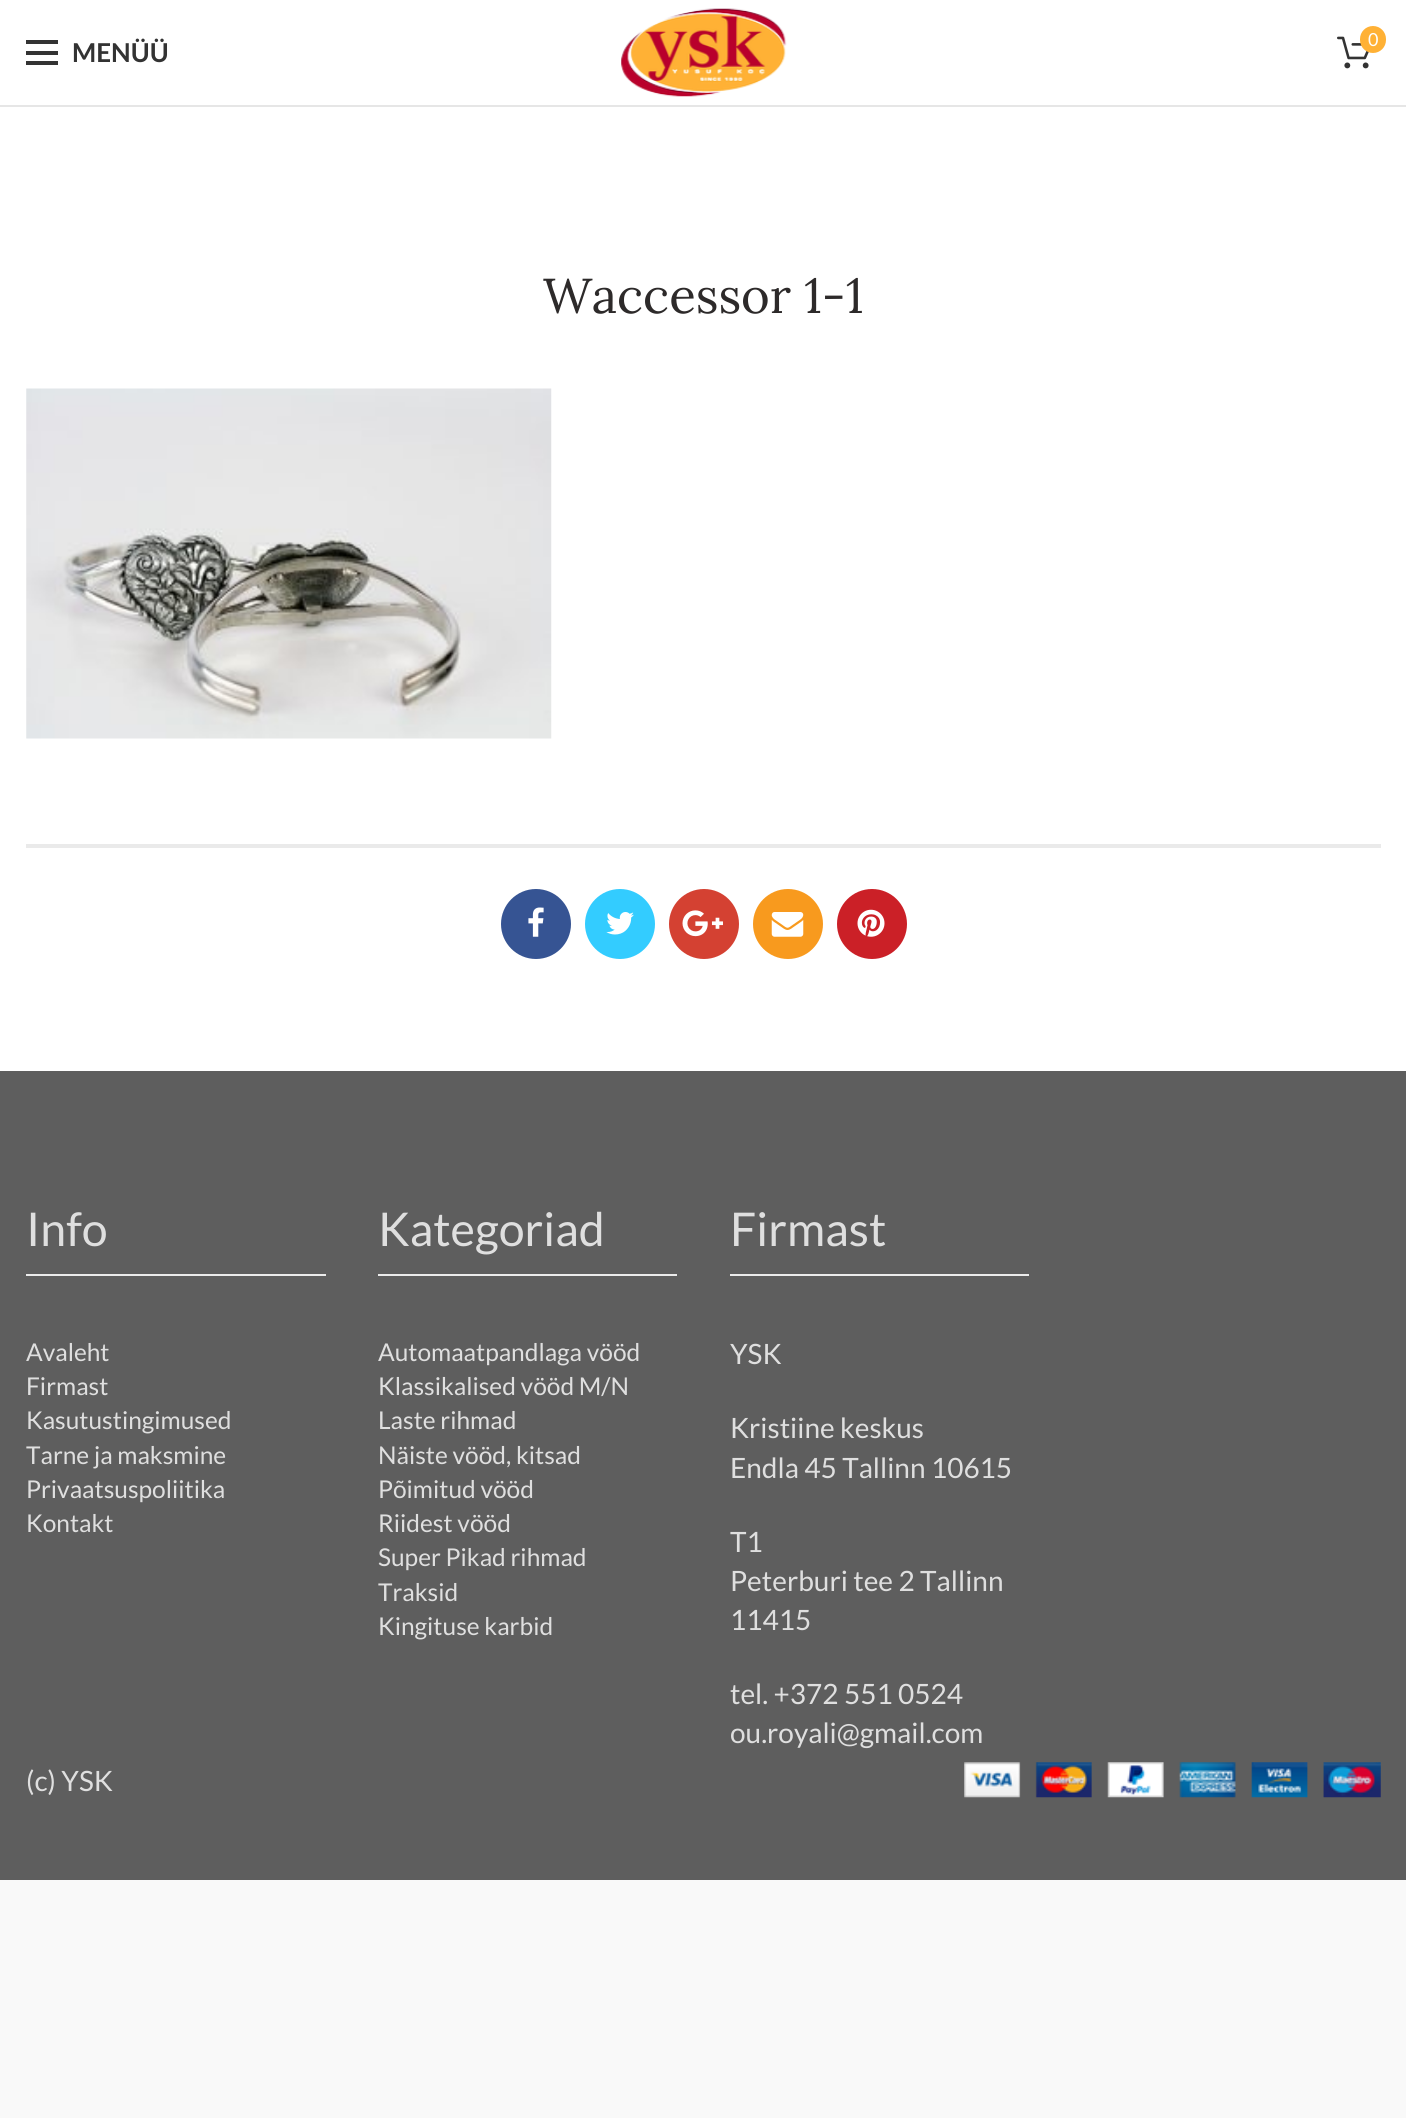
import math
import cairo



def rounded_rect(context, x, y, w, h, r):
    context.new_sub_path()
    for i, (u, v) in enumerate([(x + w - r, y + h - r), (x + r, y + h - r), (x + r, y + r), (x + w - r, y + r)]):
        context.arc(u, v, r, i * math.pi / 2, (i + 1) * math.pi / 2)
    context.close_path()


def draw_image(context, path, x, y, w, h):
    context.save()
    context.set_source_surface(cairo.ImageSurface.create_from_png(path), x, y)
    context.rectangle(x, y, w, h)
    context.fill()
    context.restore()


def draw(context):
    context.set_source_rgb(249 / 255, 249 / 255, 249 / 255)
    context.paint()
    context.set_source_rgb(1, 1, 1)
    context.rectangle(0, 0, 1406, 1071)
    context.fill()
    context.set_source_rgb(230 / 255, 230 / 255, 230 / 255)
    context.rectangle(0, 105, 1406, 2)
    context.fill()
    context.set_source_rgb(51 / 255, 51 / 255, 51 / 255)
    context.rectangle(26, 51, 32, 4)
    context.fill()
    context.rectangle(26, 40, 32, 4)
    context.fill()
    context.rectangle(26, 61, 32, 4)
    context.fill()
    draw_image(context, "images/1.png", 621, 8, 166, 89)
    draw_image(context, "images/2.png", 1337, 36, 32, 33)
    context.set_source_rgb(1, 177 / 255, 53 / 255)
    rounded_rect(context, 1360, 26, 26, 27, 13)
    context.fill()
    draw_image(context, "images/3.png", 26, 388, 526, 351)
    context.set_source_rgb(234 / 255, 234 / 255, 234 / 255)
    context.rectangle(26, 844, 1355, 4)
    context.fill()
    context.set_source_rgb(54 / 255, 84 / 255, 147 / 255)
    context.arc(536, 924, 35, 0, 2 * math.pi)
    context.fill()
    draw_image(context, "images/4.png", 528, 907, 16, 30)
    context.set_source_rgb(51 / 255, 204 / 255, 1)
    context.arc(620, 924, 35, 0, 2 * math.pi)
    context.fill()
    draw_image(context, "images/5.png", 606, 912, 28, 23)
    context.set_source_rgb(212 / 255, 65 / 255, 50 / 255)
    context.arc(704, 924, 35, 0, 2 * math.pi)
    context.fill()
    draw_image(context, "images/6.png", 682, 910, 41, 27)
    context.set_source_rgb(248 / 255, 154 / 255, 30 / 255)
    context.arc(788, 924, 35, 0, 2 * math.pi)
    context.fill()
    draw_image(context, "images/7.png", 771, 912, 33, 25)
    context.set_source_rgb(203 / 255, 32 / 255, 39 / 255)
    context.arc(872, 924, 35, 0, 2 * math.pi)
    context.fill()
    draw_image(context, "images/8.png", 857, 909, 28, 28)
    context.set_source_rgb(94 / 255, 94 / 255, 94 / 255)
    context.rectangle(0, 1071, 1406, 809)
    context.fill()
    context.set_source_rgb(235 / 255, 235 / 255, 235 / 255)
    context.rectangle(26, 1274, 300, 2)
    context.fill()
    context.rectangle(378, 1274, 299, 2)
    context.fill()
    context.rectangle(730, 1274, 299, 2)
    context.fill()
    draw_image(context, "images/9.png", 964, 1762, 417, 36)
    context.select_font_face("Lato", cairo.FontSlant.NORMAL, cairo.FontWeight.BOLD)
    context.set_font_size(26)
    context.set_source_rgb(51 / 255, 51 / 255, 51 / 255)
    context.move_to(72, 62)
    context.show_text("MENÜÜ")
    context.select_font_face("Lato")
    context.set_font_size(18)
    context.set_source_rgb(1, 1, 1)
    context.move_to(1368, 46)
    context.show_text("0")
    context.select_font_face("Lora")
    context.set_font_size(49)
    context.set_source_rgb(45 / 255, 42 / 255, 42 / 255)
    context.move_to(543, 313)
    context.show_text("Waccessor 1-1")
    context.select_font_face("Lato")
    context.set_font_size(46.5)
    context.set_source_rgb(223 / 255, 223 / 255, 223 / 255)
    context.move_to(26, 1246)
    context.show_text("Info")
    context.set_font_size(24.5)
    context.move_to(26, 1361)
    context.show_text("Avaleht")
    context.move_to(26, 1395)
    context.show_text("Firmast")
    context.move_to(26, 1429)
    context.show_text("Kasutustingimused")
    context.move_to(26, 1464)
    context.show_text("Tarne ja maksmine")
    context.move_to(26, 1498)
    context.show_text("Privaatsuspoliitika")
    context.move_to(26, 1532)
    context.show_text("Kontakt")
    context.set_font_size(46.5)
    context.move_to(378, 1246)
    context.show_text("Kategoriad")
    context.set_font_size(24.5)
    context.move_to(378, 1361)
    context.show_text("Automaatpandlaga vööd")
    context.move_to(378, 1395)
    context.show_text("Klassikalised vööd M/N")
    context.move_to(378, 1429)
    context.show_text("Laste rihmad")
    context.move_to(378, 1464)
    context.show_text("Näiste vööd, kitsad")
    context.move_to(378, 1498)
    context.show_text("Põimitud vööd")
    context.move_to(378, 1532)
    context.show_text("Riidest vööd")
    context.move_to(378, 1566)
    context.show_text("Super Pikad rihmad")
    context.move_to(378, 1601)
    context.show_text("Traksid")
    context.move_to(378, 1635)
    context.show_text("Kingituse karbid")
    context.set_font_size(46.5)
    context.move_to(730, 1246)
    context.show_text("Firmast")
    context.set_font_size(28)
    context.move_to(730, 1364)
    context.show_text("YSK")
    context.move_to(730, 1438)
    context.show_text("Kristiine keskus")
    context.move_to(730, 1478)
    context.show_text("Endla 45 Tallinn 10615")
    context.move_to(730, 1552)
    context.show_text("T1")
    context.move_to(730, 1591)
    context.show_text("Peterburi tee 2 Tallinn")
    context.move_to(730, 1630)
    context.show_text("11415")
    context.move_to(730, 1704)
    context.show_text("tel. +372 551 0524")
    context.move_to(730, 1743)
    context.show_text("ou.royali@gmail.com")
    context.move_to(26, 1791)
    context.show_text("(c) YSK")


surface = cairo.ImageSurface(cairo.Format.RGB24, 1406, 2118)
context = cairo.Context(surface)
options = cairo.FontOptions()
options.set_hint_metrics(cairo.HintMetrics.OFF)
options.set_hint_style(cairo.HintStyle.NONE)
context.set_font_options(options)
context.set_miter_limit(4)
draw(context)
surface.write_to_png("out.png")
